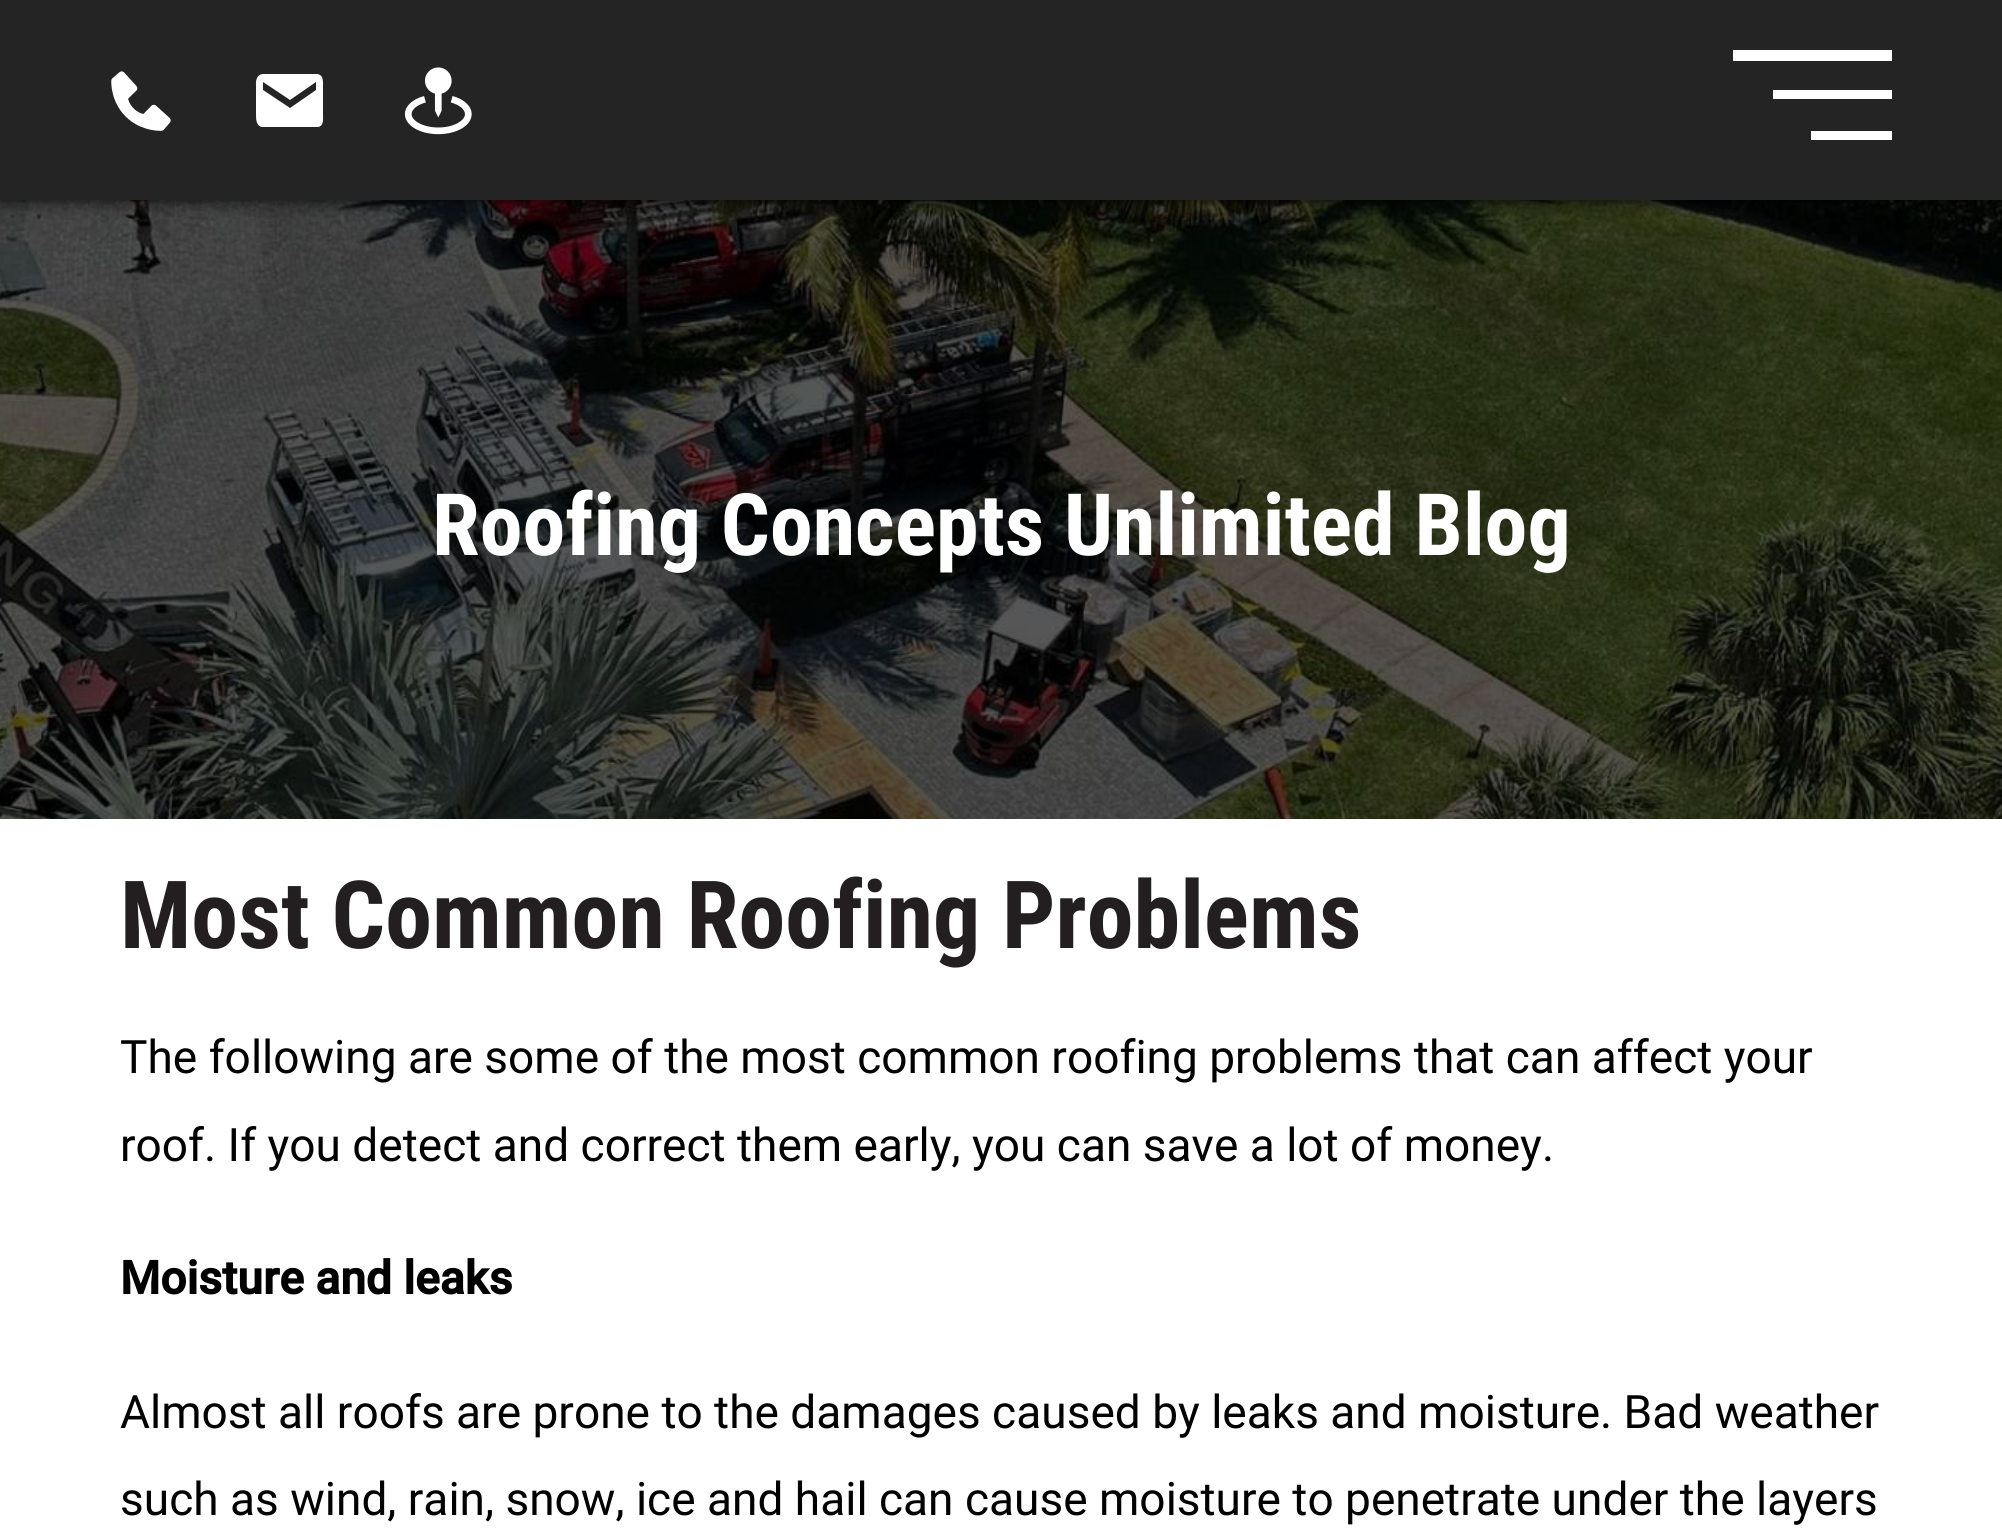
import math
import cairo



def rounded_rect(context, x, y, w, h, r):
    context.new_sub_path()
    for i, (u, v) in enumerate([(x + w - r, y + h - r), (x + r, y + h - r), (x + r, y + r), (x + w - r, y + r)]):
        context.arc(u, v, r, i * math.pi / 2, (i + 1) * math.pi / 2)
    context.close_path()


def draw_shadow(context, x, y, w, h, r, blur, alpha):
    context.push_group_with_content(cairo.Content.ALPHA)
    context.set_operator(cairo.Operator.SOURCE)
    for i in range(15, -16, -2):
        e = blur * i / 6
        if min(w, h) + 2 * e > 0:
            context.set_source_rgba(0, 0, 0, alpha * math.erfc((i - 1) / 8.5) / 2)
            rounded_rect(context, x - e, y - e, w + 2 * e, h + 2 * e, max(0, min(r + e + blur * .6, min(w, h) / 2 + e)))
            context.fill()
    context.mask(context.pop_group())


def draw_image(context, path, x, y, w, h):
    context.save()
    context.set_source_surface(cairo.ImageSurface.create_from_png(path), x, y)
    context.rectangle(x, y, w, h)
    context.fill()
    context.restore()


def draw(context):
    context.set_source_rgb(1, 1, 1)
    context.paint()
    draw_image(context, "images/3.png", 0, 200, 2002, 619)
    context.set_source_rgb(0, 0, 0)
    draw_shadow(context, 0, 7, 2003, 200, 0, 7, 0.23)
    draw_shadow(context, 0, 7, 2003, 200, 0, 7, 0.16)
    context.set_source_rgb(36 / 255, 36 / 255, 36 / 255)
    context.rectangle(0, 0, 2002, 200)
    context.fill()
    context.save()
    context.rectangle(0, 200, 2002, 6)
    context.clip()
    context.set_source_rgb(0, 0, 0)
    draw_shadow(context, 0, 2, 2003, 201, 0, 2, 0.24)
    context.restore()
    draw_image(context, "images/1.png", 111, 71, 60, 60)
    context.set_source_rgb(1, 1, 1)
    context.new_path()
    context.move_to(316, 74)
    context.line_to(262, 74)
    context.curve_to(255, 76, 256, 83, 256, 87)
    context.line_to(256, 114)
    context.curve_to(256, 119, 256, 127, 263, 127)
    context.line_to(318, 127)
    context.curve_to(324, 126, 323, 119, 323, 114)
    context.line_to(323, 87)
    context.curve_to(323, 82, 324, 74, 316, 74)
    context.close_path()
    context.move_to(316, 90)
    context.line_to(290, 108)
    context.line_to(263, 90)
    context.line_to(263, 82)
    context.line_to(290, 100)
    context.line_to(316, 82)
    context.close_path()
    context.fill()
    draw_image(context, "images/2.png", 404, 67, 68, 68)
    context.rectangle(1733, 50, 159, 11)
    context.fill()
    context.rectangle(1773, 90, 119, 9)
    context.fill()
    context.rectangle(1811, 131, 81, 9)
    context.fill()
    context.select_font_face("Roboto Condensed", cairo.FontSlant.NORMAL, cairo.FontWeight.BOLD)
    context.set_font_size(86.1)
    context.move_to(432, 555)
    context.show_text("Roofing Concepts Unlimited Blog")
    context.set_font_size(94.1)
    context.set_source_rgb(35 / 255, 31 / 255, 32 / 255)
    context.move_to(120, 948)
    context.show_text("Most Common Roofing Problems")
    context.select_font_face("Roboto")
    context.set_font_size(46.05)
    context.set_source_rgb(0, 0, 0)
    context.move_to(120, 1073)
    context.show_text("The following are some of the most common roofing problems that can affect your")
    context.move_to(120, 1161)
    context.show_text("roof. If you detect and correct them early, you can save a lot of money.")
    context.select_font_face("Roboto", cairo.FontSlant.NORMAL, cairo.FontWeight.BOLD)
    context.move_to(120, 1294)
    context.show_text("Moisture and leaks")
    context.select_font_face("Roboto")
    context.move_to(120, 1428)
    context.show_text("Almost all roofs are prone to the damages caused by leaks and moisture. Bad weather")
    context.move_to(120, 1515)
    context.show_text("such as wind, rain, snow, ice and hail can cause moisture to penetrate under the layers")


surface = cairo.ImageSurface(cairo.Format.RGB24, 2002, 1533)
context = cairo.Context(surface)
options = cairo.FontOptions()
options.set_hint_metrics(cairo.HintMetrics.OFF)
options.set_hint_style(cairo.HintStyle.NONE)
context.set_font_options(options)
context.set_miter_limit(4)
draw(context)
surface.write_to_png("out.png")
